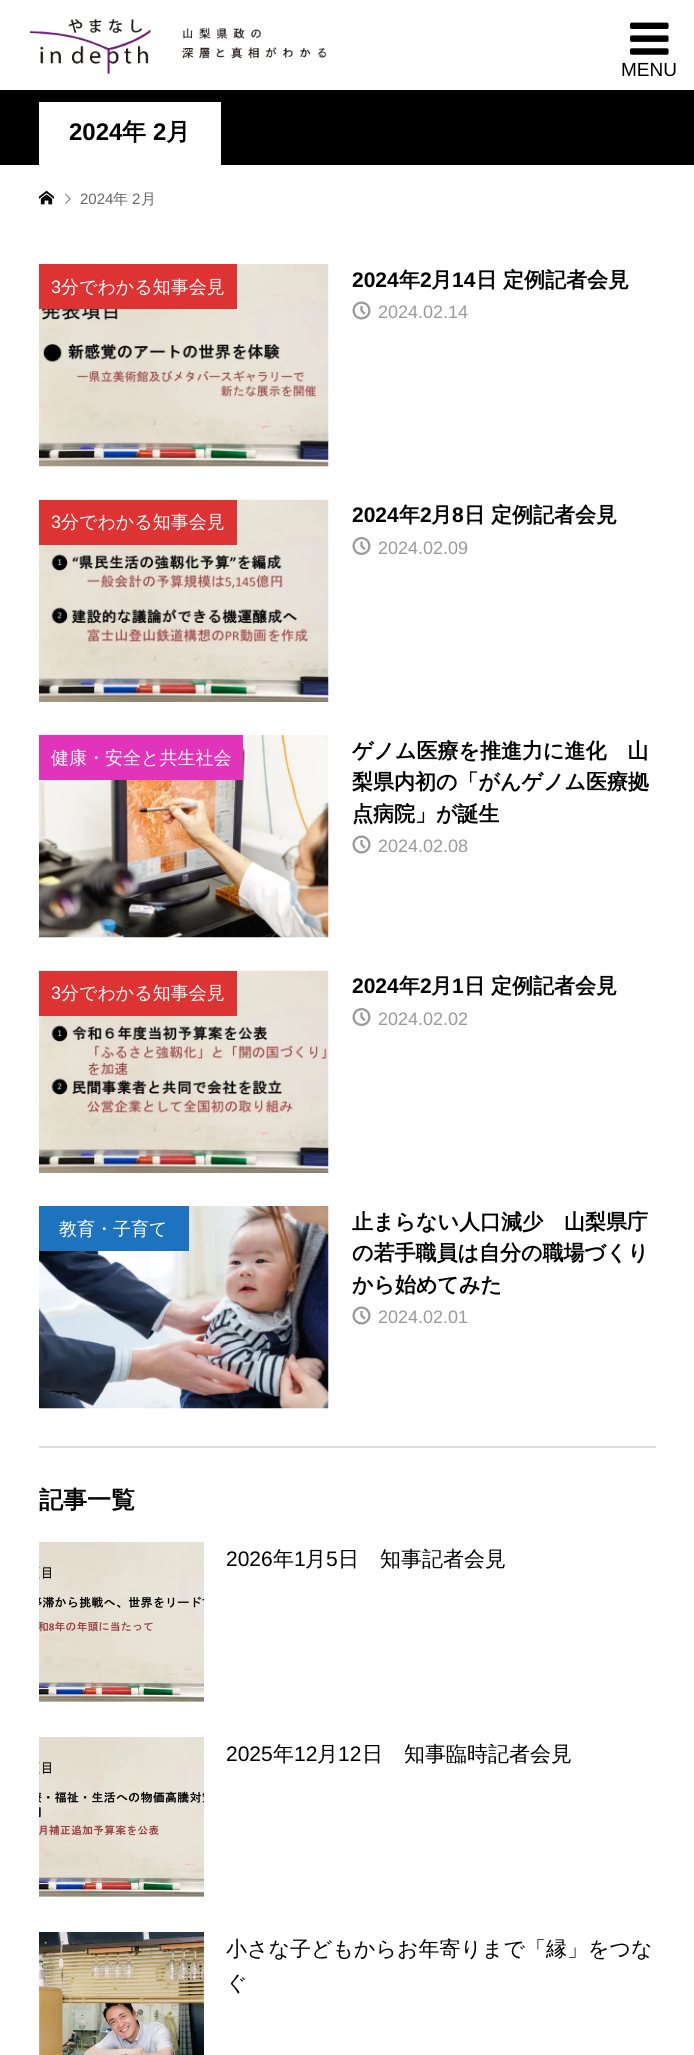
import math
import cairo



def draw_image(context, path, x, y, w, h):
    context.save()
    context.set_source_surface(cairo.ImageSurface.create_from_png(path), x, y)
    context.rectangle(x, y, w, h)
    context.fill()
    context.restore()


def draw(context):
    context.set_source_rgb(1, 1, 1)
    context.paint()
    draw_image(context, "images/1.png", 30, 19, 297, 56)
    draw_image(context, "images/2.png", 630, 22, 39, 33)
    context.set_source_rgb(0, 0, 0)
    context.rectangle(0, 90, 694, 75)
    context.fill()
    context.set_source_rgb(1, 1, 1)
    context.rectangle(39, 102, 182, 63)
    context.fill()
    draw_image(context, "images/3.png", 39, 190, 15, 15)
    draw_image(context, "images/4.png", 65, 193, 6, 11)
    draw_image(context, "images/5.png", 39, 264, 290, 203)
    context.set_source_rgb(221 / 255, 51 / 255, 51 / 255)
    context.rectangle(39, 264, 198, 45)
    context.fill()
    draw_image(context, "images/6.png", 352, 301, 19, 19)
    draw_image(context, "images/7.png", 39, 499, 290, 203)
    context.rectangle(39, 500, 198, 45)
    context.fill()
    draw_image(context, "images/8.png", 352, 537, 19, 18)
    draw_image(context, "images/9.png", 39, 735, 290, 203)
    context.set_source_rgb(226 / 255, 52 / 255, 186 / 255)
    context.rectangle(39, 735, 204, 45)
    context.fill()
    draw_image(context, "images/6.png", 352, 835, 19, 19)
    draw_image(context, "images/10.png", 39, 970, 290, 203)
    context.set_source_rgb(221 / 255, 51 / 255, 51 / 255)
    context.rectangle(39, 971, 198, 45)
    context.fill()
    draw_image(context, "images/8.png", 352, 1008, 19, 18)
    draw_image(context, "images/11.png", 39, 1206, 290, 203)
    context.set_source_rgb(30 / 255, 115 / 255, 190 / 255)
    context.rectangle(39, 1206, 150, 45)
    context.fill()
    draw_image(context, "images/6.png", 352, 1306, 19, 19)
    context.set_source_rgb(221 / 255, 221 / 255, 221 / 255)
    context.rectangle(39, 1446, 617, 2)
    context.fill()
    draw_image(context, "images/12.png", 39, 1542, 165, 165)
    draw_image(context, "images/13.png", 39, 1737, 165, 163)
    draw_image(context, "images/14.png", 39, 1932, 165, 123)
    context.select_font_face("Liberation Sans")
    context.set_font_size(19)
    context.set_source_rgb(0, 0, 0)
    context.move_to(621, 76)
    context.show_text("MENU")
    context.select_font_face("Liberation Sans", cairo.FontSlant.NORMAL, cairo.FontWeight.BOLD)
    context.set_font_size(24)
    context.move_to(69, 140)
    context.show_text("2024")
    context.select_font_face("WenQuanYi Zen Hei", cairo.FontSlant.NORMAL, cairo.FontWeight.BOLD)
    context.move_to(122, 140)
    context.show_text("年")
    context.select_font_face("Liberation Sans", cairo.FontSlant.NORMAL, cairo.FontWeight.BOLD)
    context.move_to(153, 140)
    context.show_text("2")
    context.select_font_face("WenQuanYi Zen Hei", cairo.FontSlant.NORMAL, cairo.FontWeight.BOLD)
    context.move_to(166, 140)
    context.show_text("月")
    context.select_font_face("Liberation Sans")
    context.set_font_size(15)
    context.set_source_rgb(102 / 255, 102 / 255, 102 / 255)
    context.move_to(80, 204)
    context.show_text("2024")
    context.select_font_face("WenQuanYi Zen Hei Medium")
    context.move_to(113, 204)
    context.show_text("年")
    context.select_font_face("Liberation Sans")
    context.move_to(132, 204)
    context.show_text("2")
    context.select_font_face("WenQuanYi Zen Hei Medium")
    context.move_to(141, 204)
    context.show_text("月")
    context.select_font_face("Liberation Sans")
    context.set_font_size(18)
    context.set_source_rgb(1, 1, 1)
    context.move_to(51, 293)
    context.show_text("3")
    context.select_font_face("WenQuanYi Zen Hei Medium")
    context.move_to(61, 293)
    context.show_text("分でわかる知事会見")
    context.select_font_face("Liberation Sans", cairo.FontSlant.NORMAL, cairo.FontWeight.BOLD)
    context.set_font_size(21)
    context.set_source_rgb(0, 0, 0)
    context.move_to(352, 287)
    context.show_text("2024")
    context.select_font_face("WenQuanYi Zen Hei", cairo.FontSlant.NORMAL, cairo.FontWeight.BOLD)
    context.move_to(399, 287)
    context.show_text("年")
    context.select_font_face("Liberation Sans", cairo.FontSlant.NORMAL, cairo.FontWeight.BOLD)
    context.move_to(420, 287)
    context.show_text("2")
    context.select_font_face("WenQuanYi Zen Hei", cairo.FontSlant.NORMAL, cairo.FontWeight.BOLD)
    context.move_to(431, 287)
    context.show_text("月")
    context.select_font_face("Liberation Sans", cairo.FontSlant.NORMAL, cairo.FontWeight.BOLD)
    context.move_to(452, 287)
    context.show_text("14")
    context.select_font_face("WenQuanYi Zen Hei", cairo.FontSlant.NORMAL, cairo.FontWeight.BOLD)
    context.move_to(476, 287)
    context.show_text("日")
    context.move_to(503, 287)
    context.show_text("定例記者会見")
    context.select_font_face("Liberation Sans")
    context.set_font_size(18)
    context.set_source_rgb(153 / 255, 153 / 255, 153 / 255)
    context.move_to(378, 318)
    context.show_text("2024.02.14")
    context.set_source_rgb(1, 1, 1)
    context.move_to(51, 528)
    context.show_text("3")
    context.select_font_face("WenQuanYi Zen Hei Medium")
    context.move_to(61, 528)
    context.show_text("分でわかる知事会見")
    context.select_font_face("Liberation Sans", cairo.FontSlant.NORMAL, cairo.FontWeight.BOLD)
    context.set_font_size(21)
    context.set_source_rgb(0, 0, 0)
    context.move_to(352, 522)
    context.show_text("2024")
    context.select_font_face("WenQuanYi Zen Hei", cairo.FontSlant.NORMAL, cairo.FontWeight.BOLD)
    context.move_to(399, 522)
    context.show_text("年")
    context.select_font_face("Liberation Sans", cairo.FontSlant.NORMAL, cairo.FontWeight.BOLD)
    context.move_to(420, 522)
    context.show_text("2")
    context.select_font_face("WenQuanYi Zen Hei", cairo.FontSlant.NORMAL, cairo.FontWeight.BOLD)
    context.move_to(431, 522)
    context.show_text("月")
    context.select_font_face("Liberation Sans", cairo.FontSlant.NORMAL, cairo.FontWeight.BOLD)
    context.move_to(452, 522)
    context.show_text("8")
    context.select_font_face("WenQuanYi Zen Hei", cairo.FontSlant.NORMAL, cairo.FontWeight.BOLD)
    context.move_to(464, 522)
    context.show_text("日")
    context.move_to(491, 522)
    context.show_text("定例記者会見")
    context.select_font_face("Liberation Sans")
    context.set_font_size(18)
    context.set_source_rgb(153 / 255, 153 / 255, 153 / 255)
    context.move_to(378, 554)
    context.show_text("2024.02.09")
    context.select_font_face("WenQuanYi Zen Hei Medium")
    context.set_source_rgb(1, 1, 1)
    context.move_to(51, 764)
    context.show_text("健康・安全と共生社会")
    context.select_font_face("WenQuanYi Zen Hei", cairo.FontSlant.NORMAL, cairo.FontWeight.BOLD)
    context.set_font_size(21)
    context.set_source_rgb(0, 0, 0)
    context.move_to(352, 758)
    context.show_text("ゲノム医療を推進力に進化　山")
    context.move_to(352, 789)
    context.show_text("梨県内初の「がんゲノム医療拠")
    context.move_to(352, 821)
    context.show_text("点病院」が誕生")
    context.select_font_face("Liberation Sans")
    context.set_font_size(18)
    context.set_source_rgb(153 / 255, 153 / 255, 153 / 255)
    context.move_to(378, 852)
    context.show_text("2024.02.08")
    context.set_source_rgb(1, 1, 1)
    context.move_to(51, 999)
    context.show_text("3")
    context.select_font_face("WenQuanYi Zen Hei Medium")
    context.move_to(61, 999)
    context.show_text("分でわかる知事会見")
    context.select_font_face("Liberation Sans", cairo.FontSlant.NORMAL, cairo.FontWeight.BOLD)
    context.set_font_size(21)
    context.set_source_rgb(0, 0, 0)
    context.move_to(352, 993)
    context.show_text("2024")
    context.select_font_face("WenQuanYi Zen Hei", cairo.FontSlant.NORMAL, cairo.FontWeight.BOLD)
    context.move_to(399, 993)
    context.show_text("年")
    context.select_font_face("Liberation Sans", cairo.FontSlant.NORMAL, cairo.FontWeight.BOLD)
    context.move_to(420, 993)
    context.show_text("2")
    context.select_font_face("WenQuanYi Zen Hei", cairo.FontSlant.NORMAL, cairo.FontWeight.BOLD)
    context.move_to(431, 993)
    context.show_text("月")
    context.select_font_face("Liberation Sans", cairo.FontSlant.NORMAL, cairo.FontWeight.BOLD)
    context.move_to(452, 993)
    context.show_text("1")
    context.select_font_face("WenQuanYi Zen Hei", cairo.FontSlant.NORMAL, cairo.FontWeight.BOLD)
    context.move_to(464, 993)
    context.show_text("日")
    context.move_to(491, 993)
    context.show_text("定例記者会見")
    context.select_font_face("Liberation Sans")
    context.set_font_size(18)
    context.set_source_rgb(153 / 255, 153 / 255, 153 / 255)
    context.move_to(378, 1025)
    context.show_text("2024.02.02")
    context.select_font_face("WenQuanYi Zen Hei Medium")
    context.set_source_rgb(1, 1, 1)
    context.move_to(59, 1235)
    context.show_text("教育・子育て")
    context.select_font_face("WenQuanYi Zen Hei", cairo.FontSlant.NORMAL, cairo.FontWeight.BOLD)
    context.set_font_size(21)
    context.set_source_rgb(0, 0, 0)
    context.move_to(352, 1229)
    context.show_text("止まらない人口減少　山梨県庁")
    context.move_to(352, 1260)
    context.show_text("の若手職員は自分の職場づくり")
    context.move_to(352, 1292)
    context.show_text("から始めてみた")
    context.select_font_face("Liberation Sans")
    context.set_font_size(18)
    context.set_source_rgb(153 / 255, 153 / 255, 153 / 255)
    context.move_to(378, 1323)
    context.show_text("2024.02.01")
    context.select_font_face("WenQuanYi Zen Hei", cairo.FontSlant.NORMAL, cairo.FontWeight.BOLD)
    context.set_font_size(24)
    context.set_source_rgb(0, 0, 0)
    context.move_to(39, 1508)
    context.show_text("記事一覧")
    context.select_font_face("Liberation Sans")
    context.set_font_size(21)
    context.move_to(226, 1566)
    context.show_text("2026")
    context.select_font_face("WenQuanYi Zen Hei Medium")
    context.move_to(273, 1566)
    context.show_text("年")
    context.select_font_face("Liberation Sans")
    context.move_to(294, 1566)
    context.show_text("1")
    context.select_font_face("WenQuanYi Zen Hei Medium")
    context.move_to(305, 1566)
    context.show_text("月")
    context.select_font_face("Liberation Sans")
    context.move_to(326, 1566)
    context.show_text("5")
    context.select_font_face("WenQuanYi Zen Hei Medium")
    context.move_to(338, 1566)
    context.show_text("日　知事記者会見")
    context.select_font_face("Liberation Sans")
    context.move_to(226, 1761)
    context.show_text("2025")
    context.select_font_face("WenQuanYi Zen Hei Medium")
    context.move_to(273, 1761)
    context.show_text("年")
    context.select_font_face("Liberation Sans")
    context.move_to(294, 1761)
    context.show_text("12")
    context.select_font_face("WenQuanYi Zen Hei Medium")
    context.move_to(317, 1761)
    context.show_text("月")
    context.select_font_face("Liberation Sans")
    context.move_to(338, 1761)
    context.show_text("12")
    context.select_font_face("WenQuanYi Zen Hei Medium")
    context.move_to(362, 1761)
    context.show_text("日　知事臨時記者会見")
    context.move_to(226, 1956)
    context.show_text("小さな子どもからお年寄りまで「縁」をつな")
    context.move_to(226, 1990)
    context.show_text("ぐ")


surface = cairo.ImageSurface(cairo.Format.RGB24, 694, 2055)
context = cairo.Context(surface)
options = cairo.FontOptions()
options.set_hint_metrics(cairo.HintMetrics.OFF)
options.set_hint_style(cairo.HintStyle.NONE)
context.set_font_options(options)
context.set_miter_limit(4)
draw(context)
surface.write_to_png("out.png")
